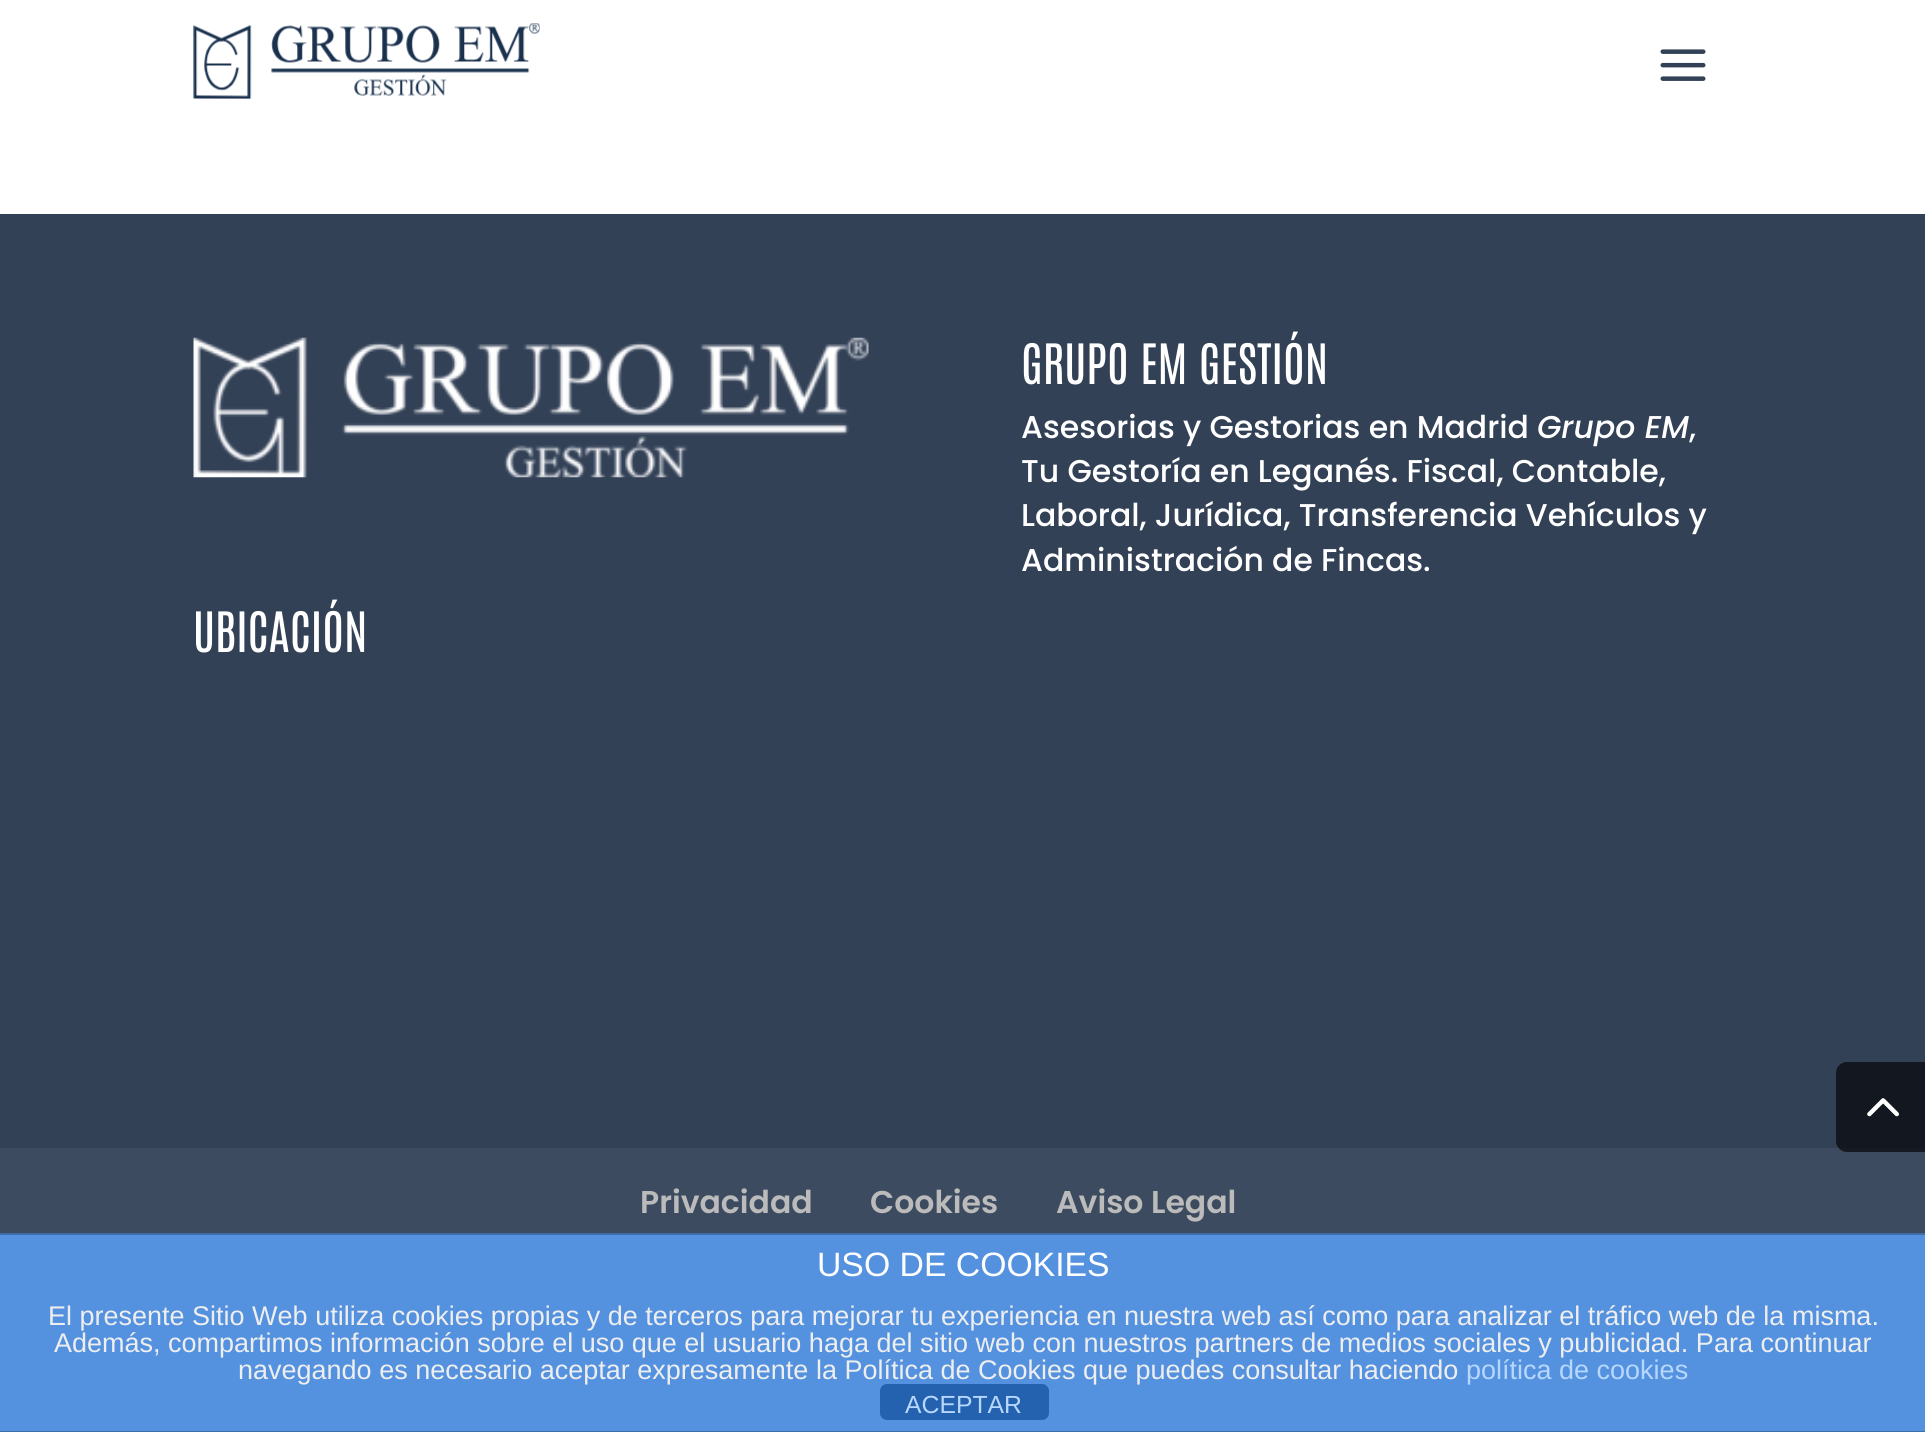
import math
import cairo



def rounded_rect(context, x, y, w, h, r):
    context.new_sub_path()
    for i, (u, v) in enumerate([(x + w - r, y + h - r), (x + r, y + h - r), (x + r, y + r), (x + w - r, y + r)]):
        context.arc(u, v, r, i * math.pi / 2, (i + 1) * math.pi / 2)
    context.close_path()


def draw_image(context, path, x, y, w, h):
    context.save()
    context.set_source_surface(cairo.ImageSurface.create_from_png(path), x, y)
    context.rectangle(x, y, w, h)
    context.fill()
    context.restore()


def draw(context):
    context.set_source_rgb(51 / 255, 65 / 255, 87 / 255)
    context.paint()
    context.set_source_rgb(1, 1, 1)
    context.rectangle(0, 0, 1925, 214)
    context.fill()
    draw_image(context, "images/1.png", 193, 23, 347, 76)
    draw_image(context, "images/2.png", 1660, 49, 46, 32)
    draw_image(context, "images/3.png", 193, 337, 676, 141)
    context.set_source_rgb(61 / 255, 75 / 255, 96 / 255)
    context.rectangle(0, 1148, 1925, 85)
    context.fill()
    context.set_source_rgba(0, 0, 0, 0.4)
    context.new_path()
    context.move_to(1847, 1062)
    context.line_to(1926, 1062)
    context.line_to(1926, 1152)
    context.line_to(1847, 1152)
    context.curve_to(1841, 1152, 1836, 1147, 1836, 1141)
    context.line_to(1836, 1073)
    context.curve_to(1836, 1067, 1841, 1062, 1847, 1062)
    context.close_path()
    context.fill()
    draw_image(context, "images/4.png", 1867, 1098, 32, 19)
    context.new_path()
    context.move_to(1847, 1062)
    context.line_to(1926, 1062)
    context.line_to(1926, 1152)
    context.line_to(1847, 1152)
    context.curve_to(1841, 1152, 1836, 1147, 1836, 1141)
    context.line_to(1836, 1073)
    context.curve_to(1836, 1067, 1841, 1062, 1847, 1062)
    context.close_path()
    context.fill()
    draw_image(context, "images/5.png", 1867, 1098, 32, 19)
    context.set_source_rgb(84 / 255, 146 / 255, 224 / 255)
    context.rectangle(0, 1235, 1925, 196)
    context.fill()
    context.set_source_rgb(63 / 255, 109 / 255, 167 / 255)
    context.rectangle(0, 1233, 1925, 2)
    context.fill()
    context.rectangle(0, 1431, 1925, 1)
    context.fill()
    context.set_source_rgb(36 / 255, 98 / 255, 176 / 255)
    rounded_rect(context, 880, 1384, 169, 36, 7)
    context.fill()
    context.select_font_face("Antonio")
    context.set_font_size(47.25)
    context.set_source_rgb(1, 1, 1)
    context.move_to(1021, 384)
    context.show_text("GRUPO EM GESTIÓN")
    context.select_font_face("Poppins Medium")
    context.set_font_size(31.5)
    context.move_to(1021, 438)
    context.show_text("Asesorias y Gestorias en Madrid")
    context.select_font_face("Poppins Medium", cairo.FontSlant.ITALIC)
    context.move_to(1537, 438)
    context.show_text("Grupo EM")
    context.select_font_face("Poppins Medium")
    context.move_to(1689, 438)
    context.show_text(",")
    context.move_to(1021, 482)
    context.show_text("Tu Gestoría en Leganés. Fiscal, Contable,")
    context.move_to(1021, 526)
    context.show_text("Laboral, Jurídica, Transferencia Vehículos y")
    context.move_to(1021, 571)
    context.show_text("Administración de Fincas.")
    context.select_font_face("Antonio")
    context.set_font_size(47.25)
    context.move_to(193, 652)
    context.show_text("UBICACIÓN")
    context.select_font_face("Poppins SemiBold")
    context.set_font_size(31.5)
    context.set_source_rgb(187 / 255, 187 / 255, 187 / 255)
    context.move_to(640, 1213)
    context.show_text("Privacidad")
    context.move_to(870, 1213)
    context.show_text("Cookies")
    context.move_to(1056, 1213)
    context.show_text("Aviso Legal")
    context.select_font_face("Liberation Sans")
    context.set_font_size(33.75)
    context.set_source_rgb(1, 1, 1)
    context.move_to(817, 1276)
    context.show_text("USO DE COOKIES")
    context.set_font_size(27)
    context.set_source_rgb(238 / 255, 238 / 255, 238 / 255)
    context.move_to(48, 1325)
    context.show_text("El presente Sitio Web utiliza cookies propias y de terceros para mejorar tu experiencia en nuestra web así como para analizar el tráfico web de la misma.")
    context.move_to(54, 1352)
    context.show_text("Además, compartimos información sobre el uso que el usuario haga del sitio web con nuestros partners de medios sociales y publicidad. Para continuar")
    context.move_to(238, 1379)
    context.show_text("navegando es necesario aceptar expresamente la Política de Cookies que puedes consultar haciendo")
    context.set_source_rgb(183 / 255, 215 / 255, 1)
    context.move_to(1466, 1379)
    context.show_text("política de cookies")
    context.set_font_size(24.75)
    context.move_to(905, 1413)
    context.show_text("ACEPTAR")


surface = cairo.ImageSurface(cairo.Format.RGB24, 1925, 1432)
context = cairo.Context(surface)
options = cairo.FontOptions()
options.set_hint_metrics(cairo.HintMetrics.OFF)
options.set_hint_style(cairo.HintStyle.NONE)
context.set_font_options(options)
context.set_miter_limit(4)
draw(context)
surface.write_to_png("out.png")
